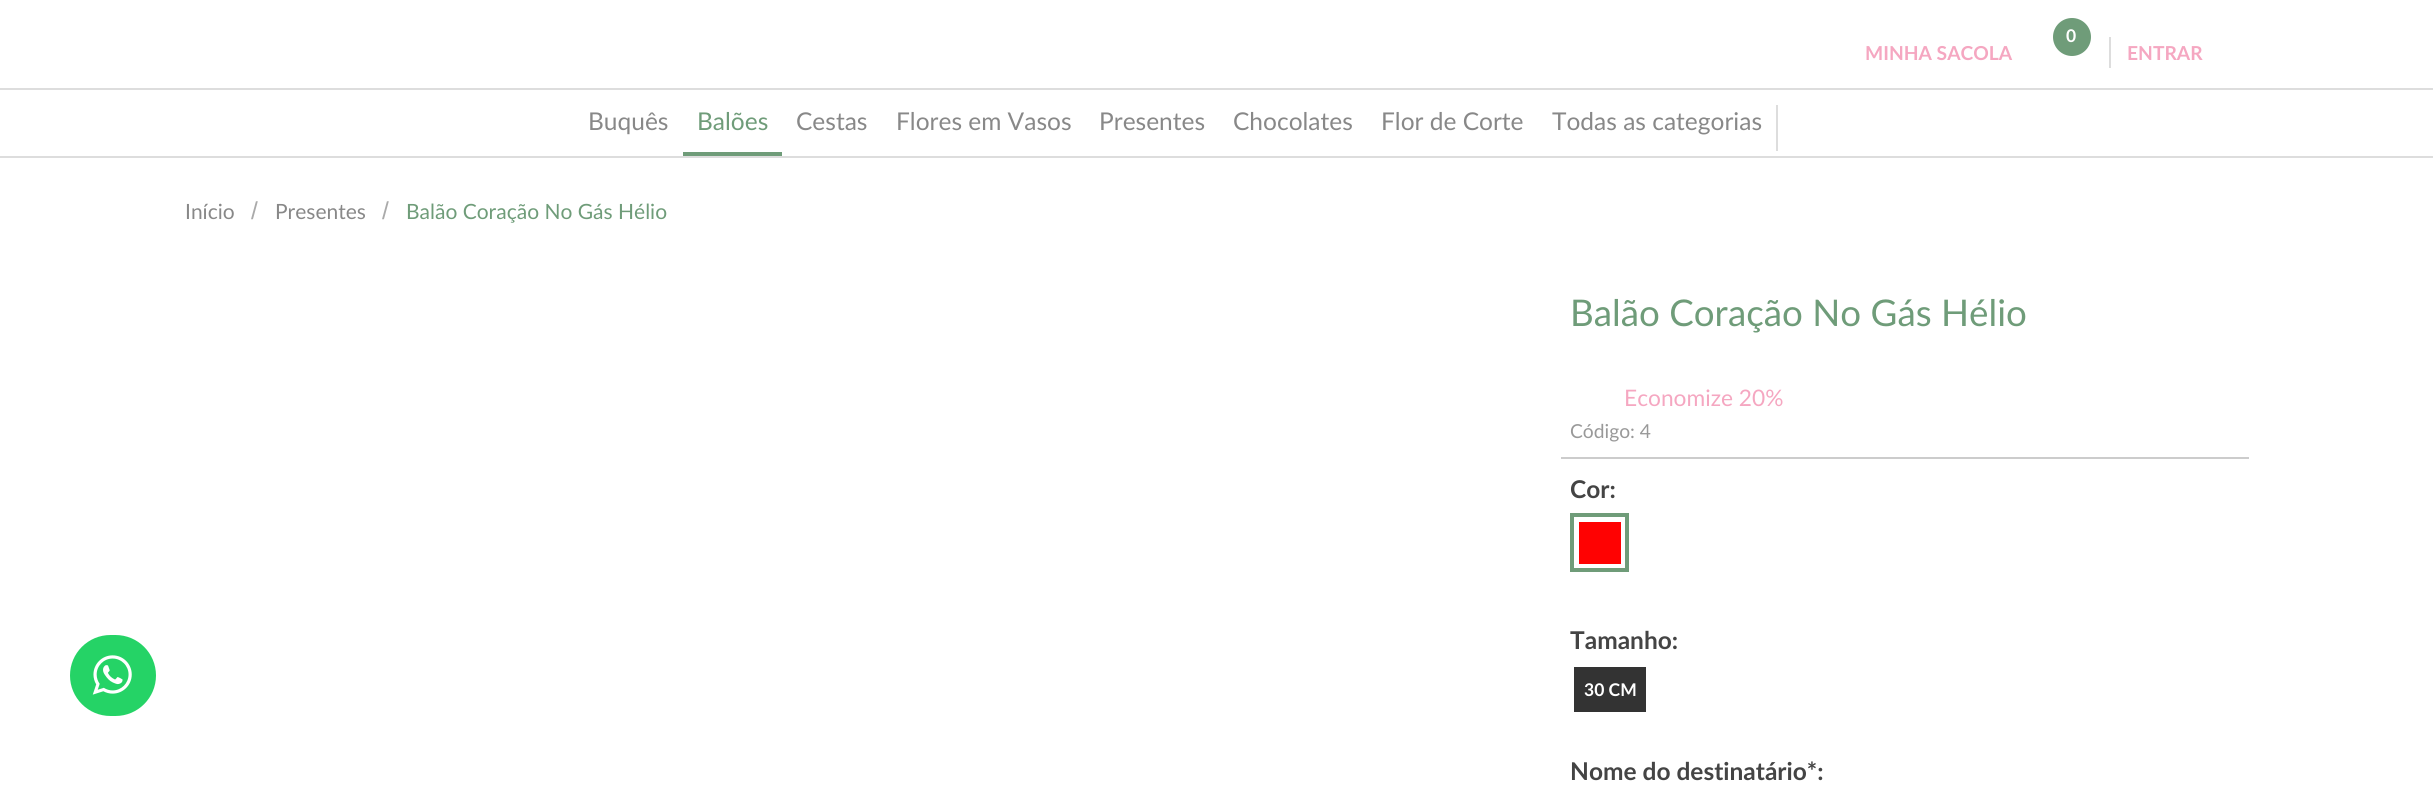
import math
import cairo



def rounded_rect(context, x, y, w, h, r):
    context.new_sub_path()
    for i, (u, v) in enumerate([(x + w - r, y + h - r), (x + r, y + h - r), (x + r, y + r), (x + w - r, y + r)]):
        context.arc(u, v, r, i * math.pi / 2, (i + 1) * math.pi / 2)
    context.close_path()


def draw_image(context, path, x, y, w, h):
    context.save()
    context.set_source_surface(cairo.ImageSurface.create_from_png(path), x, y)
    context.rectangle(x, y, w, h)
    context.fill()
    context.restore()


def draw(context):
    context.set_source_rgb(1, 1, 1)
    context.paint()
    context.set_source_rgb(37 / 255, 211 / 255, 102 / 255)
    rounded_rect(context, 70, 635, 86, 81, 40.5)
    context.fill()
    draw_image(context, "images/1.png", 92, 655, 40, 40)
    context.set_source_rgb(111 / 255, 156 / 255, 121 / 255)
    context.arc(2072, 37, 19, 0, 2 * math.pi)
    context.fill()
    context.set_source_rgb(221 / 255, 221 / 255, 221 / 255)
    context.rectangle(2109, 37, 2, 31)
    context.fill()
    context.rectangle(0, 88, 2433, 2)
    context.fill()
    context.rectangle(0, 156, 2433, 2)
    context.fill()
    context.set_source_rgb(111 / 255, 156 / 255, 121 / 255)
    context.rectangle(683, 152, 99, 4)
    context.fill()
    context.set_source_rgb(221 / 255, 221 / 255, 221 / 255)
    context.rectangle(1776, 105, 2, 46)
    context.fill()
    context.set_source_rgb(204 / 255, 204 / 255, 204 / 255)
    context.rectangle(1561, 457, 688, 2)
    context.fill()
    context.rectangle(1572, 515, 55, 55)
    context.set_source_rgb(111 / 255, 156 / 255, 121 / 255)
    context.set_line_width(4)
    context.stroke()
    context.set_source_rgb(1, 2 / 255, 2 / 255)
    context.rectangle(1579, 522, 42, 42)
    context.fill()
    context.set_source_rgb(51 / 255, 51 / 255, 51 / 255)
    context.rectangle(1574, 667, 72, 45)
    context.fill()
    context.select_font_face("Lato", cairo.FontSlant.NORMAL, cairo.FontWeight.BOLD)
    context.set_font_size(17.5)
    context.set_source_rgb(1, 1, 1)
    context.move_to(2066, 42)
    context.show_text("0")
    context.set_font_size(19.25)
    context.set_source_rgb(245 / 255, 167 / 255, 193 / 255)
    context.move_to(1865, 60)
    context.show_text("MINHA SACOLA")
    context.move_to(2127, 60)
    context.show_text("ENTRAR")
    context.select_font_face("Lato")
    context.set_font_size(24.5)
    context.set_source_rgb(136 / 255, 136 / 255, 136 / 255)
    context.move_to(588, 130)
    context.show_text("Buquês")
    context.set_source_rgb(111 / 255, 156 / 255, 121 / 255)
    context.move_to(697, 130)
    context.show_text("Balões")
    context.set_source_rgb(136 / 255, 136 / 255, 136 / 255)
    context.move_to(796, 130)
    context.show_text("Cestas")
    context.move_to(896, 130)
    context.show_text("Flores em Vasos")
    context.move_to(1099, 130)
    context.show_text("Presentes")
    context.move_to(1233, 130)
    context.show_text("Chocolates")
    context.move_to(1381, 130)
    context.show_text("Flor de Corte")
    context.move_to(1552, 130)
    context.show_text("Todas as categorias")
    context.set_font_size(21)
    context.move_to(185, 219)
    context.show_text("Início")
    context.select_font_face("Liberation Sans")
    context.set_font_size(24.5)
    context.set_source_rgb(170 / 255, 170 / 255, 170 / 255)
    context.move_to(251, 219)
    context.show_text("/")
    context.select_font_face("Lato")
    context.set_font_size(21)
    context.set_source_rgb(136 / 255, 136 / 255, 136 / 255)
    context.move_to(275, 219)
    context.show_text("Presentes")
    context.select_font_face("Liberation Sans")
    context.set_font_size(24.5)
    context.set_source_rgb(170 / 255, 170 / 255, 170 / 255)
    context.move_to(382, 219)
    context.show_text("/")
    context.select_font_face("Lato")
    context.set_font_size(21)
    context.set_source_rgb(111 / 255, 156 / 255, 121 / 255)
    context.move_to(406, 219)
    context.show_text("Balão Coração No Gás Hélio")
    context.set_font_size(36.75)
    context.move_to(1570, 326)
    context.show_text("Balão Coração No Gás Hélio")
    context.set_font_size(22.75)
    context.set_source_rgb(245 / 255, 167 / 255, 193 / 255)
    context.move_to(1624, 406)
    context.show_text("Economize 20%")
    context.set_font_size(19.25)
    context.set_source_rgb(153 / 255, 153 / 255, 153 / 255)
    context.move_to(1570, 438)
    context.show_text("Código: 4")
    context.select_font_face("Lato", cairo.FontSlant.NORMAL, cairo.FontWeight.BOLD)
    context.set_font_size(24.5)
    context.set_source_rgb(68 / 255, 68 / 255, 68 / 255)
    context.move_to(1570, 498)
    context.show_text("Cor:")
    context.move_to(1570, 649)
    context.show_text("Tamanho:")
    context.set_font_size(17.5)
    context.set_source_rgb(1, 1, 1)
    context.move_to(1584, 696)
    context.show_text("30 CM")
    context.set_font_size(24.5)
    context.set_source_rgb(68 / 255, 68 / 255, 68 / 255)
    context.move_to(1570, 780)
    context.show_text("Nome do destinatário*:")


surface = cairo.ImageSurface(cairo.Format.RGB24, 2433, 785)
context = cairo.Context(surface)
options = cairo.FontOptions()
options.set_hint_metrics(cairo.HintMetrics.OFF)
options.set_hint_style(cairo.HintStyle.NONE)
context.set_font_options(options)
context.set_miter_limit(4)
draw(context)
surface.write_to_png("out.png")
